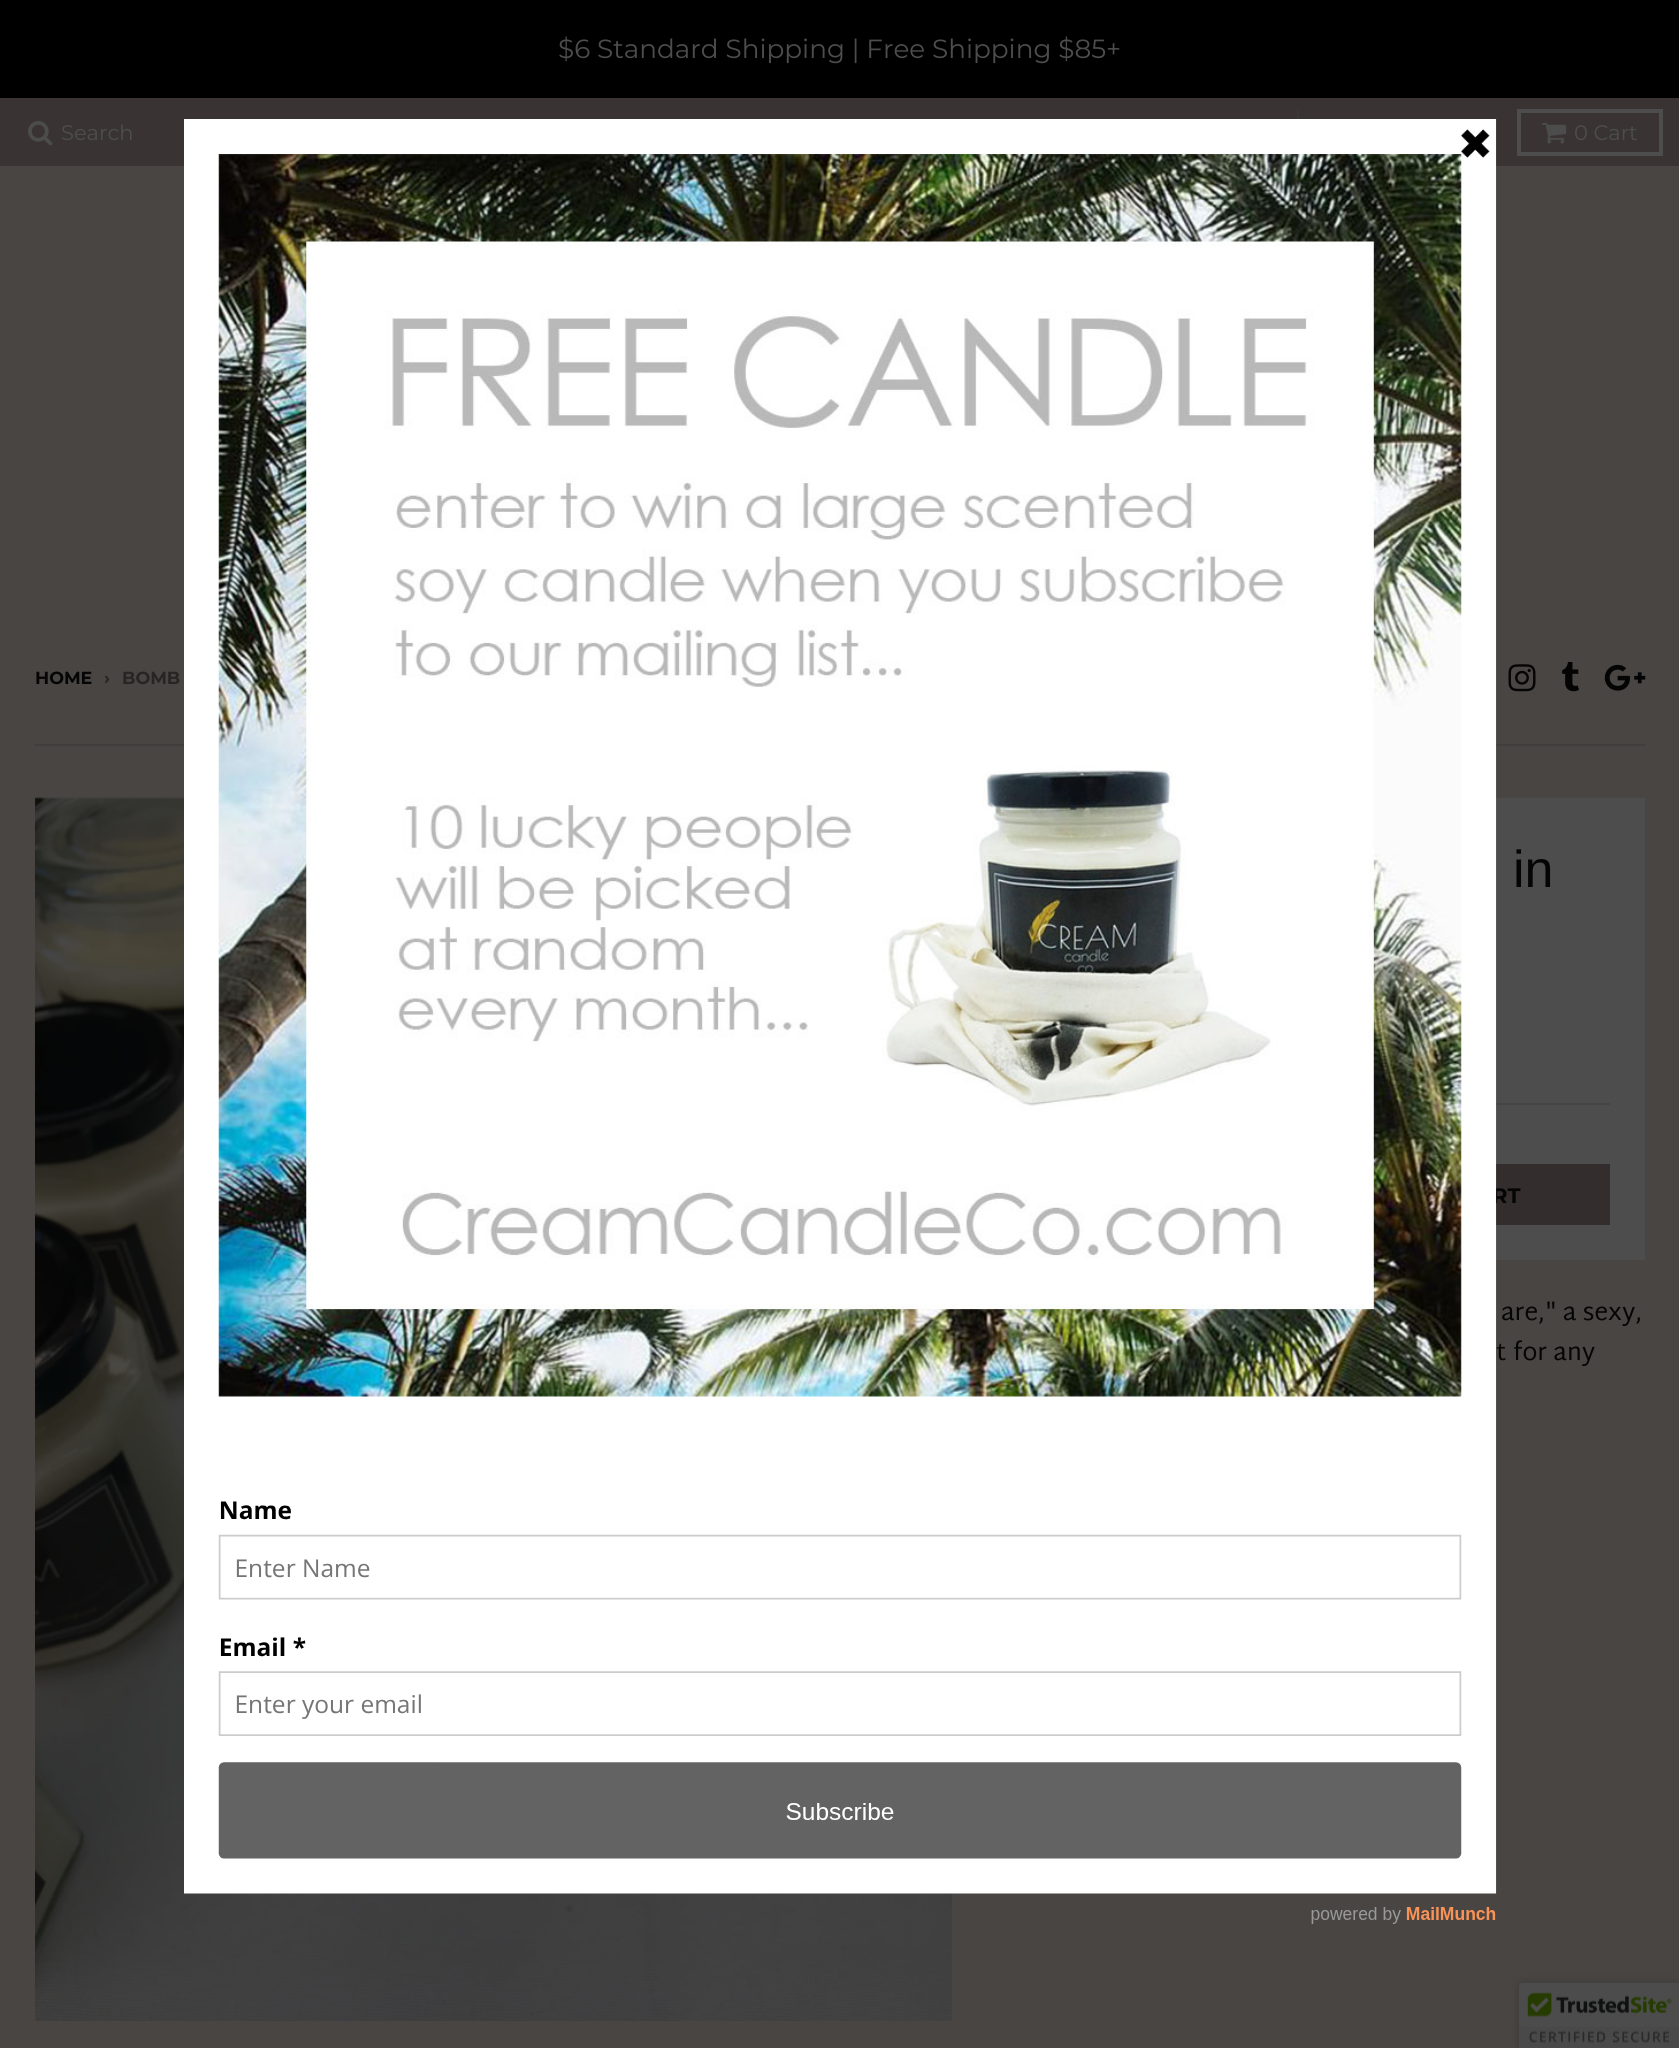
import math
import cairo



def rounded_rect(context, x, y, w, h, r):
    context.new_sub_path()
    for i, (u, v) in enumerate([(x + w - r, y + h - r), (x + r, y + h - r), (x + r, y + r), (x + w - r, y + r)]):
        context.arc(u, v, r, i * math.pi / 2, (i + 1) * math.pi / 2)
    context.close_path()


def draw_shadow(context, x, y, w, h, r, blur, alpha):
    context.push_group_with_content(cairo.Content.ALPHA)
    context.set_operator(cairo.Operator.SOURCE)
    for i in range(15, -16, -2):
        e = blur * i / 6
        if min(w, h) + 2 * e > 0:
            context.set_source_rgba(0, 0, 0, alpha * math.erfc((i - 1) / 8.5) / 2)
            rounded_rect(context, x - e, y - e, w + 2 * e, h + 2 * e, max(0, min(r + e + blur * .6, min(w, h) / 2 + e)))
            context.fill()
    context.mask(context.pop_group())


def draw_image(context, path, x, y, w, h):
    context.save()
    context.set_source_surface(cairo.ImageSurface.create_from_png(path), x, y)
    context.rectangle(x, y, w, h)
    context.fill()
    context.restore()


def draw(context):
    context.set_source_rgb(72 / 255, 69 / 255, 67 / 255)
    context.paint()
    context.set_source_rgb(0, 0, 0)
    context.rectangle(0, 0, 1679, 98)
    context.fill()
    context.set_source_rgb(57 / 255, 51 / 255, 51 / 255)
    context.rectangle(0, 98, 1679, 68)
    context.fill()
    draw_image(context, "images/2.png", 28, 121, 25, 25)
    context.set_source_rgb(61 / 255, 56 / 255, 56 / 255)
    context.rectangle(1297, 109, 2, 10)
    context.fill()
    context.rectangle(1519, 111, 142, 43)
    context.set_source_rgb(77 / 255, 77 / 255, 77 / 255)
    context.set_line_width(4)
    context.stroke()
    draw_image(context, "images/3.png", 1541, 122, 26, 22)
    draw_image(context, "images/4.png", 1508, 664, 28, 28)
    draw_image(context, "images/5.png", 1562, 662, 17, 30)
    draw_image(context, "images/6.png", 1604, 664, 42, 27)
    context.set_source_rgb(65 / 255, 62 / 255, 61 / 255)
    context.rectangle(35, 744, 1610, 2)
    context.fill()
    draw_image(context, "images/7.png", 35, 797, 918, 1224)
    context.set_source_rgb(77 / 255, 77 / 255, 77 / 255)
    context.rectangle(1496, 798, 149, 462)
    context.fill()
    context.set_source_rgb(69 / 255, 69 / 255, 69 / 255)
    context.rectangle(1496, 1103, 114, 2)
    context.fill()
    context.set_source_rgb(52 / 255, 45 / 255, 45 / 255)
    context.rectangle(1496, 1164, 114, 61)
    context.fill()
    context.set_source_rgb(0, 0, 0)
    draw_shadow(context, 1519, 1983, 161, 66, 4, 4.5, 0.2)
    context.set_source_rgb(77 / 255, 77 / 255, 77 / 255)
    context.new_path()
    context.move_to(1523, 1983)
    context.line_to(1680, 1983)
    context.line_to(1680, 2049)
    context.line_to(1519, 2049)
    context.line_to(1519, 1987)
    context.curve_to(1519, 1985, 1521, 1983, 1523, 1983)
    context.close_path()
    context.fill()
    draw_image(context, "images/8.png", 1519, 1982, 160, 66)
    context.select_font_face("Montserrat")
    context.set_font_size(26.25)
    context.move_to(558, 58)
    context.show_text("$6 Standard Shipping | Free Shipping $85+")
    context.set_font_size(21)
    context.move_to(61, 140)
    context.show_text("Search")
    context.move_to(1574, 140)
    context.show_text("0 Cart")
    context.select_font_face("Montserrat", cairo.FontSlant.NORMAL, cairo.FontWeight.BOLD)
    context.set_font_size(17.5)
    context.set_source_rgb(5 / 255, 5 / 255, 5 / 255)
    context.move_to(35, 684)
    context.show_text("HOME")
    context.set_source_rgb(39 / 255, 37 / 255, 36 / 255)
    context.move_to(104, 684)
    context.show_text("›")
    context.move_to(122, 684)
    context.show_text("BOMB")
    context.select_font_face("Liberation Sans")
    context.set_font_size(52)
    context.set_source_rgb(5 / 255, 5 / 255, 5 / 255)
    context.move_to(1513, 887)
    context.show_text("in")
    context.select_font_face("Montserrat", cairo.FontSlant.NORMAL, cairo.FontWeight.BOLD)
    context.set_font_size(21)
    context.move_to(1492, 1203)
    context.show_text("RT")
    context.select_font_face("Martel Sans")
    context.set_font_size(24.5)
    context.move_to(1501, 1320)
    context.show_text("are,\" a sexy,")
    context.move_to(1496, 1360)
    context.show_text("t for any")
    draw_image(context, "images/1.png", 184, 119, 1313, 1805)


surface = cairo.ImageSurface(cairo.Format.RGB24, 1679, 2048)
context = cairo.Context(surface)
options = cairo.FontOptions()
options.set_hint_metrics(cairo.HintMetrics.OFF)
options.set_hint_style(cairo.HintStyle.NONE)
context.set_font_options(options)
context.set_miter_limit(4)
draw(context)
surface.write_to_png("out.png")
